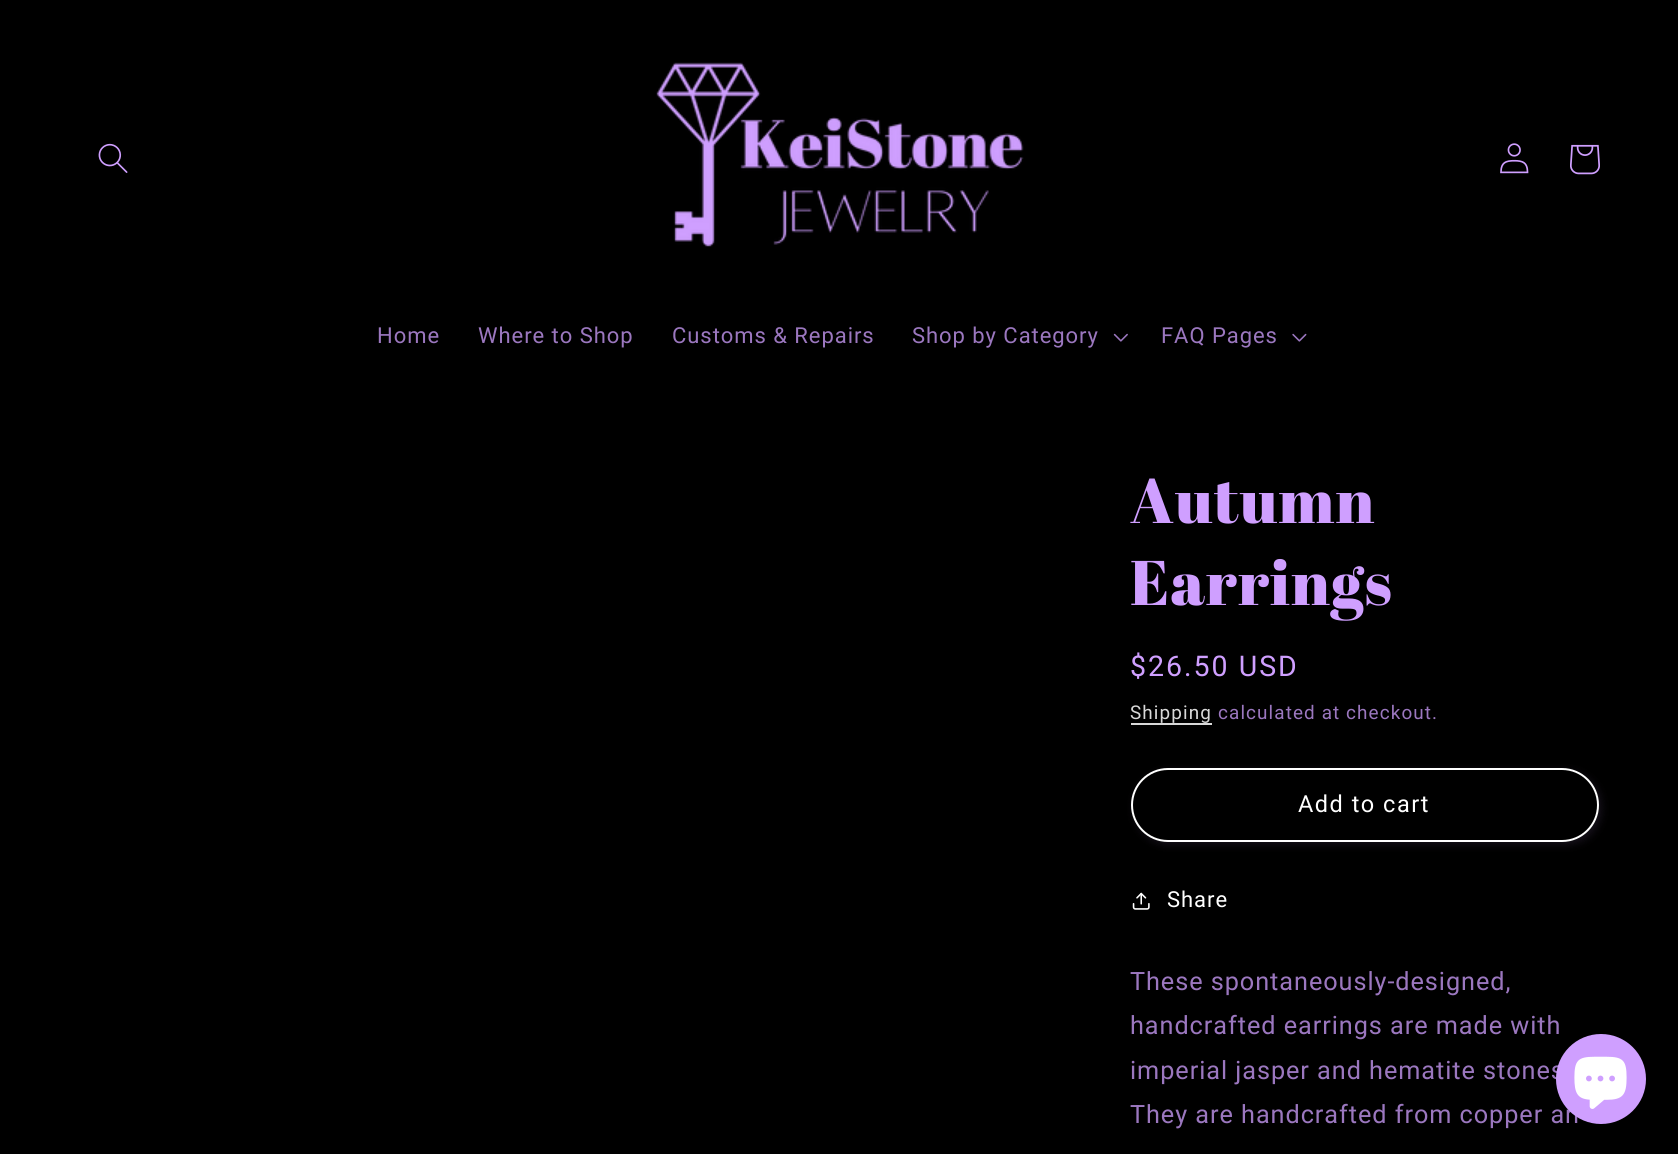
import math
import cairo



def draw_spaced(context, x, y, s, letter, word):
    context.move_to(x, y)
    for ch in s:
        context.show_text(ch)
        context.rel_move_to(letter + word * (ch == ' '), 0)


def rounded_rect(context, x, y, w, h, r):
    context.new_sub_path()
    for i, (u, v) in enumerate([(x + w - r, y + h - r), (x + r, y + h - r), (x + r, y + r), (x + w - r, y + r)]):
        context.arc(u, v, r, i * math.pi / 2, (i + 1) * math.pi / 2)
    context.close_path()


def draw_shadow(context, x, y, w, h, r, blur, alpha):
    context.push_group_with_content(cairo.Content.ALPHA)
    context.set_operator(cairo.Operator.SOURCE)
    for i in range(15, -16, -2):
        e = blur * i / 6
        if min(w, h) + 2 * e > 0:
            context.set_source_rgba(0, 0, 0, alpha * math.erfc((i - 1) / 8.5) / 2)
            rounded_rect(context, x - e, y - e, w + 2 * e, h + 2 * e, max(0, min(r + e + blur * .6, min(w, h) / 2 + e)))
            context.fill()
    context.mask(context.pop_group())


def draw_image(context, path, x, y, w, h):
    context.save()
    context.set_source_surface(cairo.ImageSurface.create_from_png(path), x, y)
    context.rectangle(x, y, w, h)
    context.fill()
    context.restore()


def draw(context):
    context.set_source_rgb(0, 0, 0)
    context.paint()
    draw_image(context, "images/1.png", 98, 143, 30, 30)
    draw_image(context, "images/2.png", 656, 62, 368, 185)
    draw_image(context, "images/3.png", 1500, 143, 29, 31)
    draw_image(context, "images/4.png", 1570, 144, 30, 31)
    draw_image(context, "images/5.png", 1113, 333, 15, 9)
    draw_image(context, "images/6.png", 1292, 333, 15, 9)
    context.set_source_rgb(217 / 255, 217 / 255, 217 / 255)
    context.rectangle(1131, 723, 81, 2)
    context.fill()
    context.set_source_rgb(207 / 255, 159 / 255, 1)
    draw_shadow(context, 1134, 771, 468, 74, 37, 4, 0.1)
    context.set_source_rgb(0, 0, 0)
    rounded_rect(context, 1131, 768, 468, 74, 37)
    context.fill()
    rounded_rect(context, 1132, 769, 466, 72, 36)
    context.stroke()
    rounded_rect(context, 1132, 769, 466, 72, 36)
    context.set_source_rgb(1, 1, 1)
    context.stroke()
    draw_image(context, "images/7.png", 1132, 892, 18, 18)
    context.select_font_face("Roboto")
    context.set_font_size(22)
    context.set_source_rgb(155 / 255, 119 / 255, 191 / 255)
    draw_spaced(context, 377, 343, "Home", 0.95, 0)
    draw_spaced(context, 478, 343, "Where to Shop", 0.95, 0)
    draw_spaced(context, 672, 343, "Customs & Repairs", 0.95, 0)
    draw_spaced(context, 912, 343, "Shop by Category", 0.95, 0)
    draw_spaced(context, 1161, 343, "FAQ Pages", 0.95, 0)
    context.select_font_face("Abril Fatface")
    context.set_font_size(63)
    context.set_source_rgb(207 / 255, 159 / 255, 1)
    draw_spaced(context, 1130, 523, "Autumn", 0.95, 0)
    draw_spaced(context, 1130, 605, "Earrings", 0.95, 0)
    context.select_font_face("Roboto")
    context.set_font_size(28.5)
    draw_spaced(context, 1130, 676, "$26.50 USD", 2, 0)
    context.set_font_size(18.9)
    context.set_source_rgb(217 / 255, 217 / 255, 217 / 255)
    draw_spaced(context, 1130, 719, "Shipping", 1.1, 0)
    context.set_source_rgb(155 / 255, 119 / 255, 191 / 255)
    draw_spaced(context, 1218, 719, "calculated at checkout.", 1.1, 0)
    context.set_font_size(23.5)
    context.set_source_rgb(1, 1, 1)
    draw_spaced(context, 1298, 812, "Add to cart", 1.5, 0)
    context.set_font_size(22)
    draw_spaced(context, 1167, 907, "Share", 0.95, 0)
    context.set_font_size(25.25)
    context.set_source_rgb(155 / 255, 119 / 255, 191 / 255)
    draw_spaced(context, 1130, 990, "These spontaneously-designed,", 0.95, 0)
    draw_spaced(context, 1130, 1034, "handcrafted earrings are made with", 0.95, 0)
    draw_spaced(context, 1130, 1079, "imperial jasper and hematite stones", 0.95, 0)
    draw_spaced(context, 1130, 1123, "They are handcrafted from copper an", 0.95, 0)
    context.set_source_rgb(207 / 255, 159 / 255, 1)
    context.new_path()
    context.arc(1601, 1079, 45, 0, 2 * math.pi)
    context.fill()
    draw_image(context, "images/8.png", 1574, 1056, 53, 53)


surface = cairo.ImageSurface(cairo.Format.RGB24, 1678, 1154)
context = cairo.Context(surface)
options = cairo.FontOptions()
options.set_hint_metrics(cairo.HintMetrics.OFF)
options.set_hint_style(cairo.HintStyle.NONE)
context.set_font_options(options)
context.set_miter_limit(4)
draw(context)
surface.write_to_png("out.png")
